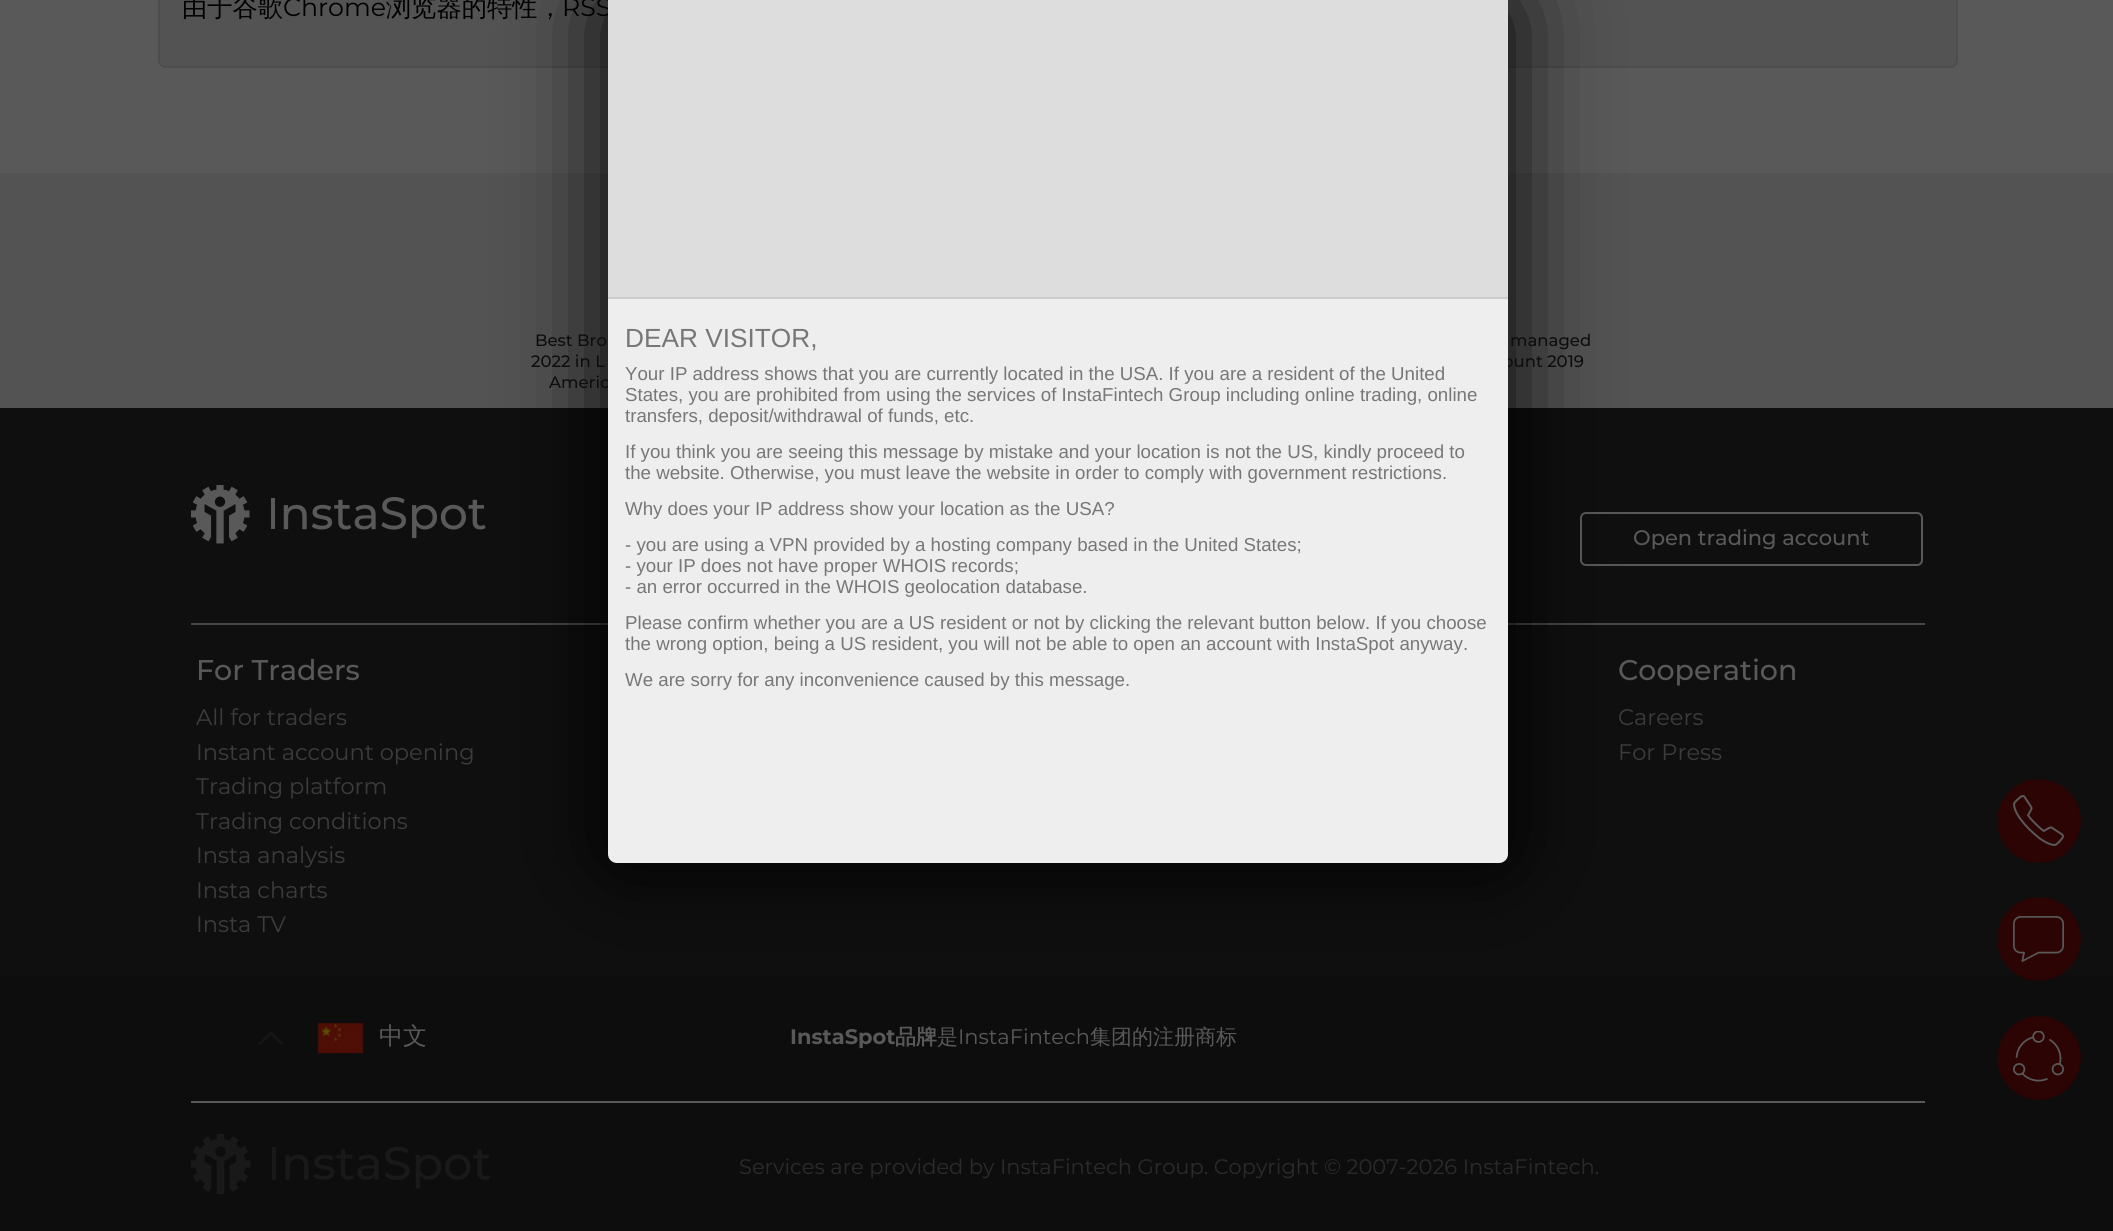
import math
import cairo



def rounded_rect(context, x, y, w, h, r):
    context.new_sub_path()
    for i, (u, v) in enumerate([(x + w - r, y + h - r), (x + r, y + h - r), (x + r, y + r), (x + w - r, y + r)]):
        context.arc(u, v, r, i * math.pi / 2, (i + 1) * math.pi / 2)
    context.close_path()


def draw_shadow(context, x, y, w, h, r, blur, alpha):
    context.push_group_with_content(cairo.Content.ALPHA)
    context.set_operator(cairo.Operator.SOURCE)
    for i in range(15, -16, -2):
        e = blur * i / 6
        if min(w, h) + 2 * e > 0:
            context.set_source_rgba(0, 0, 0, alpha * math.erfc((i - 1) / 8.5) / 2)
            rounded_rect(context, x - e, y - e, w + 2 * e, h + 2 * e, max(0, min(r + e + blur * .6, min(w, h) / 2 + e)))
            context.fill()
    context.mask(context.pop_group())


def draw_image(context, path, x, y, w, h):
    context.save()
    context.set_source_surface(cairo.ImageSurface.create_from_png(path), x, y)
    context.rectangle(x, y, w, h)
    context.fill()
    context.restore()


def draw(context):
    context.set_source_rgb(89 / 255, 89 / 255, 89 / 255)
    context.paint()
    context.set_source_rgb(83 / 255, 83 / 255, 83 / 255)
    rounded_rect(context, 159, -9, 1798, 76, 7)
    context.fill_preserve()
    context.set_source_rgb(77 / 255, 77 / 255, 77 / 255)
    context.stroke()
    context.set_source_rgb(15 / 255, 15 / 255, 15 / 255)
    context.rectangle(0, 408, 2113, 567)
    context.fill()
    context.set_source_rgb(83 / 255, 83 / 255, 83 / 255)
    context.rectangle(0, 173, 2113, 235)
    context.fill()
    context.set_source_rgb(71 / 255, 71 / 255, 71 / 255)
    context.rectangle(191, 623, 1734, 2)
    context.fill()
    draw_image(context, "images/1.png", 191, 485, 295, 59)
    rounded_rect(context, 1581, 513, 341, 52, 5)
    context.set_source_rgb(89 / 255, 89 / 255, 89 / 255)
    context.stroke()
    context.set_source_rgb(13 / 255, 13 / 255, 13 / 255)
    context.rectangle(0, 975, 2113, 256)
    context.fill()
    context.set_source_rgb(0, 0, 0)
    draw_shadow(context, 608, 0, 900, 863, 9, 48, 1)
    context.set_source_rgb(21 / 255, 21 / 255, 21 / 255)
    context.new_path()
    context.move_to(258, 1043.5)
    context.line_to(271, 1031)
    context.line_to(273, 1033)
    context.line_to(260, 1045.5)
    context.close_path()
    context.fill()
    context.new_path()
    context.move_to(268.5, 1033)
    context.line_to(271, 1031)
    context.line_to(283.5, 1043.5)
    context.line_to(281.5, 1045.5)
    context.close_path()
    context.fill()
    draw_image(context, "images/2.png", 317, 1022, 47, 32)
    context.set_source_rgb(89 / 255, 89 / 255, 89 / 255)
    context.rectangle(191, 1101, 1734, 2)
    context.fill()
    draw_image(context, "images/3.png", 191, 1134, 300, 60)
    context.set_source_rgb(44 / 255, 4 / 255, 4 / 255)
    context.arc(2039, 821, 41, 0, 2 * math.pi)
    context.fill_preserve()
    context.set_source_rgb(41 / 255, 4 / 255, 4 / 255)
    context.stroke()
    draw_image(context, "images/4.png", 2013, 795, 51, 51)
    context.set_source_rgb(44 / 255, 4 / 255, 4 / 255)
    context.arc(2039, 939, 41, 0, 2 * math.pi)
    context.fill_preserve()
    context.set_source_rgb(41 / 255, 4 / 255, 4 / 255)
    context.stroke()
    draw_image(context, "images/5.png", 2013, 916, 51, 46)
    context.set_source_rgb(44 / 255, 4 / 255, 4 / 255)
    context.arc(2039, 1058, 41, 0, 2 * math.pi)
    context.fill_preserve()
    context.set_source_rgb(41 / 255, 4 / 255, 4 / 255)
    context.stroke()
    draw_image(context, "images/6.png", 2013, 1031, 51, 51)
    context.select_font_face("WenQuanYi Zen Hei Medium")
    context.set_font_size(25.25)
    context.set_source_rgb(0, 0, 0)
    context.move_to(182, 16)
    context.show_text("由于谷歌")
    context.select_font_face("Montserrat")
    context.move_to(283, 16)
    context.show_text("Chrome")
    context.select_font_face("WenQuanYi Zen Hei Medium")
    context.move_to(386, 16)
    context.show_text("浏览器的特性，")
    context.select_font_face("Montserrat")
    context.move_to(562, 16)
    context.show_text("RSS")
    context.select_font_face("Montserrat Medium")
    context.set_font_size(16.5)
    context.set_source_rgb(13 / 255, 13 / 255, 13 / 255)
    context.move_to(535, 346)
    context.show_text("Best Bro")
    context.move_to(531, 367)
    context.show_text("2022 in L")
    context.move_to(549, 388)
    context.show_text("Americ")
    context.move_to(1510, 346)
    context.show_text("managed")
    context.move_to(1503, 367)
    context.show_text("ount 2019")
    context.set_source_rgb(238 / 255, 238 / 255, 238 / 255)
    context.new_path()
    context.move_to(608, 0)
    context.line_to(1508, 0)
    context.line_to(1508, 854)
    context.curve_to(1508, 859, 1504, 863, 1499, 863)
    context.line_to(617, 863)
    context.curve_to(612, 863, 608, 859, 608, 854)
    context.close_path()
    context.fill()
    context.select_font_face("Liberation Sans")
    context.set_font_size(18.7)
    context.set_source_rgb(119 / 255, 119 / 255, 119 / 255)
    context.move_to(625, 686)
    context.show_text("We are sorry for any inconvenience caused by this message.")
    context.move_to(625, 650)
    context.show_text("the wrong option, being a US resident, you will not be able to open an account with InstaSpot anyway.")
    context.move_to(625, 629)
    context.show_text("Please confirm whether you are a US resident or not by clicking the relevant button below. If you choose")
    context.move_to(625, 593)
    context.show_text("- an error occurred in the WHOIS geolocation database.")
    context.move_to(625, 572)
    context.show_text("- your IP does not have proper WHOIS records;")
    context.move_to(625, 551)
    context.show_text("- you are using a VPN provided by a hosting company based in the United States;")
    context.move_to(625, 515)
    context.show_text("Why does your IP address show your location as the USA?")
    context.move_to(625, 479)
    context.show_text("the website. Otherwise, you must leave the website in order to comply with government restrictions.")
    context.move_to(625, 458)
    context.show_text("If you think you are seeing this message by mistake and your location is not the US, kindly proceed to")
    context.move_to(625, 422)
    context.show_text("transfers, deposit/withdrawal of funds, etc.")
    context.move_to(625, 401)
    context.show_text("States, you are prohibited from using the services of InstaFintech Group including online trading, online")
    context.move_to(625, 380)
    context.show_text("Your IP address shows that you are currently located in the USA. If you are a resident of the United")
    context.set_font_size(26.25)
    context.move_to(625, 347)
    context.show_text("DEAR VISITOR,")
    context.set_source_rgb(204 / 255, 204 / 255, 204 / 255)
    context.rectangle(608, 297, 900, 2)
    context.fill()
    context.set_source_rgb(221 / 255, 221 / 255, 221 / 255)
    context.rectangle(608, 0, 900, 297)
    context.fill()
    context.select_font_face("Montserrat Medium")
    context.set_font_size(21)
    context.set_source_rgb(89 / 255, 89 / 255, 89 / 255)
    context.move_to(1633, 545)
    context.show_text("Open trading account")
    context.set_font_size(28.5)
    context.move_to(196, 680)
    context.show_text("For Traders")
    context.select_font_face("Montserrat")
    context.set_font_size(22.5)
    context.set_source_rgb(60 / 255, 60 / 255, 60 / 255)
    context.move_to(196, 725)
    context.show_text("All for traders")
    context.move_to(196, 760)
    context.show_text("Instant account opening")
    context.move_to(196, 794)
    context.show_text("Trading platform")
    context.move_to(196, 829)
    context.show_text("Trading conditions")
    context.move_to(196, 863)
    context.show_text("Insta analysis")
    context.move_to(196, 898)
    context.show_text("Insta charts")
    context.move_to(196, 932)
    context.show_text("Insta TV")
    context.select_font_face("Montserrat Medium")
    context.set_font_size(28.5)
    context.set_source_rgb(89 / 255, 89 / 255, 89 / 255)
    context.move_to(1618, 680)
    context.show_text("Cooperation")
    context.select_font_face("Montserrat")
    context.set_font_size(22.5)
    context.set_source_rgb(60 / 255, 60 / 255, 60 / 255)
    context.move_to(1618, 725)
    context.show_text("Careers")
    context.move_to(1618, 760)
    context.show_text("For Press")
    context.select_font_face("WenQuanYi Zen Hei Medium")
    context.set_font_size(24)
    context.set_source_rgb(89 / 255, 89 / 255, 89 / 255)
    context.move_to(379, 1044)
    context.show_text("中文")
    context.select_font_face("Montserrat", cairo.FontSlant.NORMAL, cairo.FontWeight.BOLD)
    context.set_font_size(21)
    context.move_to(790, 1044)
    context.show_text("InstaSpot")
    context.select_font_face("WenQuanYi Zen Hei", cairo.FontSlant.NORMAL, cairo.FontWeight.BOLD)
    context.move_to(895, 1044)
    context.show_text("品牌")
    context.select_font_face("WenQuanYi Zen Hei Medium")
    context.move_to(937, 1044)
    context.show_text("是")
    context.select_font_face("Montserrat")
    context.move_to(958, 1044)
    context.show_text("InstaFintech")
    context.select_font_face("WenQuanYi Zen Hei Medium")
    context.move_to(1090, 1044)
    context.show_text("集团的注册商标")
    context.select_font_face("Montserrat")
    context.set_source_rgb(43 / 255, 43 / 255, 43 / 255)
    context.move_to(739, 1174)
    context.show_text("Services are provided by InstaFintech Group. Copyright © 2007-2026 InstaFintech.")


surface = cairo.ImageSurface(cairo.Format.RGB24, 2113, 1231)
context = cairo.Context(surface)
options = cairo.FontOptions()
options.set_hint_metrics(cairo.HintMetrics.OFF)
options.set_hint_style(cairo.HintStyle.NONE)
context.set_font_options(options)
context.set_miter_limit(4)
draw(context)
surface.write_to_png("out.png")
